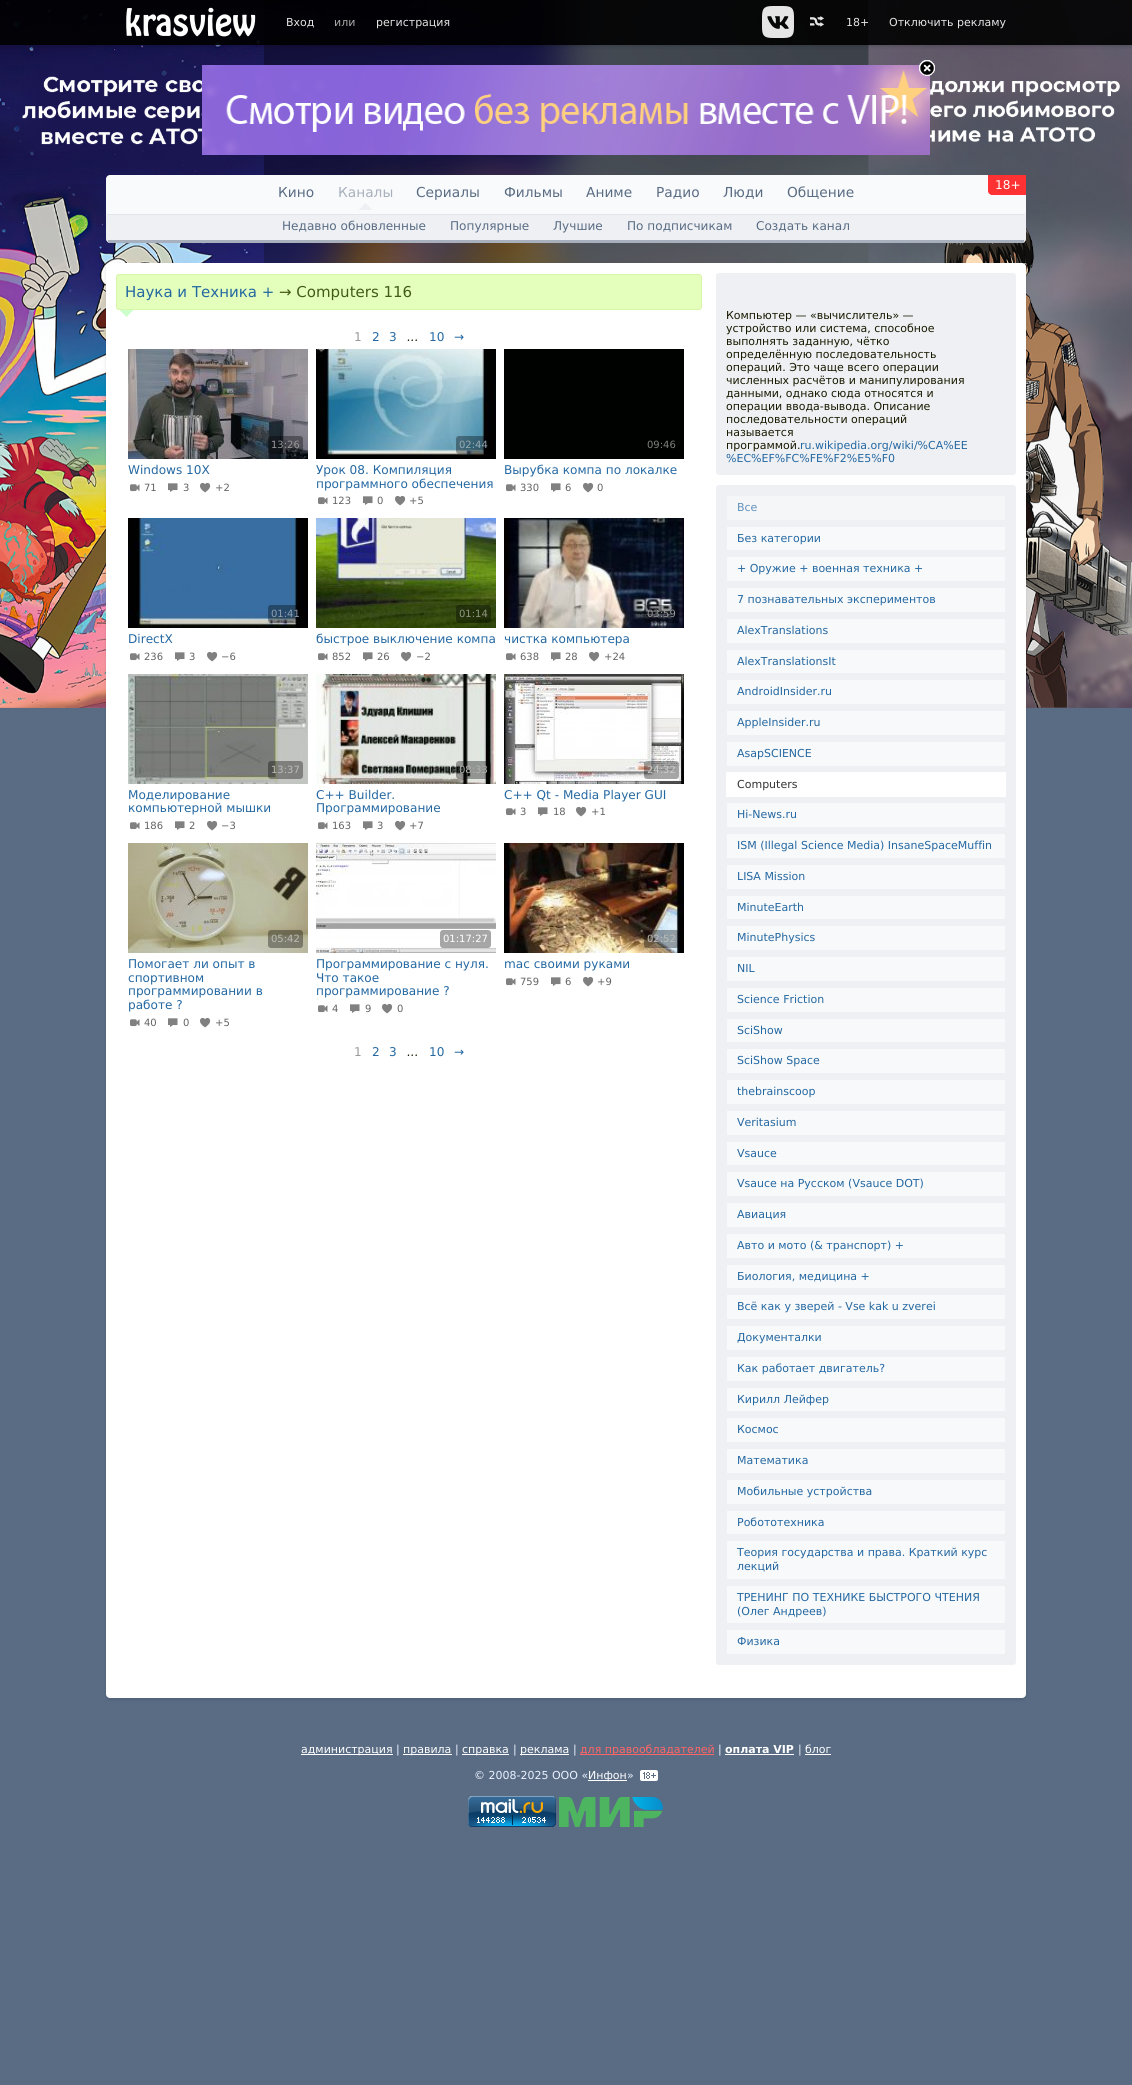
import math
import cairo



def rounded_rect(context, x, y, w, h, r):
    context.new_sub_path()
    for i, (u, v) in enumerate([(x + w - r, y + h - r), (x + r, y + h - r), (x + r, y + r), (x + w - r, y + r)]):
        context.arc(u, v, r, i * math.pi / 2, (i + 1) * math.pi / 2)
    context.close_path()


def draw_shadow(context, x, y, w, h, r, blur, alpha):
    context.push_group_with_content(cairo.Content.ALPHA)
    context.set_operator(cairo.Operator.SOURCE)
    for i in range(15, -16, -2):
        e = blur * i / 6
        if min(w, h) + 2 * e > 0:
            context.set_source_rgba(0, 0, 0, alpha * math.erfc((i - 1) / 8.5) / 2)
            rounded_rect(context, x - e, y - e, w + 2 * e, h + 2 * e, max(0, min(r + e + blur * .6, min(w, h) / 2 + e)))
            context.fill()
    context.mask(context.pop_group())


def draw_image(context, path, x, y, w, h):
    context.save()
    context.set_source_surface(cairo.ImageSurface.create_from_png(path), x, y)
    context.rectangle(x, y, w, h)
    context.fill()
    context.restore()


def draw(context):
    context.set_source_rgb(89 / 255, 108 / 255, 132 / 255)
    context.paint()
    draw_image(context, "images/1.png", 0, 0, 1132, 708)
    context.save()
    context.rectangle(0, 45, 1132, 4)
    context.clip()
    context.set_source_rgb(0, 0, 0)
    draw_shadow(context, 0, 1, 1132, 45, 0, 2, 0.2)
    context.restore()
    context.set_source_rgba(0, 0, 0, 0.9)
    context.rectangle(0, 0, 1132, 45)
    context.fill()
    draw_image(context, "images/2.png", 126, 7, 130, 30)
    draw_image(context, "images/3.png", 762, 6, 32, 32)
    draw_image(context, "images/4.png", 810, 16, 14, 11)
    draw_image(context, "images/6.png", 202, 65, 728, 90)
    draw_image(context, "images/5.png", 919, 60, 16, 16)
    context.set_source_rgb(238 / 255, 240 / 255, 243 / 255)
    context.new_path()
    context.move_to(106, 212)
    context.line_to(1026, 212)
    context.line_to(1026, 239)
    context.curve_to(1026, 241, 1024, 243, 1022, 243)
    context.line_to(110, 243)
    context.curve_to(108, 243, 106, 241, 106, 239)
    context.close_path()
    context.fill()
    context.set_source_rgb(249 / 255, 250 / 255, 251 / 255)
    rounded_rect(context, 106, 175, 920, 40, 4)
    context.fill()
    context.set_source_rgb(226 / 255, 229 / 255, 233 / 255)
    context.rectangle(108, 214, 916, 1)
    context.fill()
    context.set_source_rgb(254 / 255, 50 / 255, 50 / 255)
    context.new_path()
    context.move_to(988, 175)
    context.line_to(1026, 175)
    context.line_to(1026, 195)
    context.line_to(992, 195)
    context.curve_to(990, 195, 988, 193, 988, 191)
    context.close_path()
    context.fill()
    draw_image(context, "images/7.png", 359, 203, 13, 7)
    context.set_source_rgb(167 / 255, 176 / 255, 188 / 255)
    context.rectangle(108, 240, 916, 3)
    context.fill()
    context.set_source_rgb(0, 0, 0)
    draw_shadow(context, 106, 265, 920, 1435, 4, 1.5, 0.1)
    context.set_source_rgb(1, 1, 1)
    rounded_rect(context, 106, 263, 920, 1435, 4)
    context.fill()
    context.set_source_rgb(228 / 255, 1, 188 / 255)
    rounded_rect(context, 116.5, 274.5, 585, 35, 2.5)
    context.fill_preserve()
    context.set_source_rgb(215 / 255, 246 / 255, 169 / 255)
    context.set_line_width(1)
    context.stroke()
    draw_image(context, "images/8.png", 120, 310, 13, 7)
    draw_image(context, "images/9.png", 128, 349, 180, 110)
    context.set_source_rgba(0, 0, 0, 0.35)
    rounded_rect(context, 268, 436, 35, 18, 3)
    context.fill()
    draw_image(context, "images/10.png", 130, 484, 10, 8)
    draw_image(context, "images/11.png", 168, 483, 10, 9)
    draw_image(context, "images/12.png", 200, 482, 11, 11)
    draw_image(context, "images/13.png", 316, 349, 180, 110)
    rounded_rect(context, 456, 436, 35, 18, 3)
    context.fill()
    draw_image(context, "images/10.png", 318, 497, 10, 8)
    draw_image(context, "images/11.png", 363, 496, 10, 9)
    draw_image(context, "images/12.png", 395, 495, 11, 11)
    context.set_source_rgb(0, 2 / 255, 0)
    context.rectangle(504, 349, 180, 110)
    context.fill()
    draw_image(context, "images/10.png", 506, 484, 10, 8)
    draw_image(context, "images/11.png", 551, 483, 10, 9)
    draw_image(context, "images/12.png", 583, 482, 11, 11)
    draw_image(context, "images/14.png", 128, 518, 180, 110)
    context.set_source_rgba(0, 0, 0, 0.35)
    rounded_rect(context, 268, 605, 35, 18, 3)
    context.fill()
    draw_image(context, "images/10.png", 130, 653, 10, 8)
    draw_image(context, "images/11.png", 175, 652, 10, 9)
    draw_image(context, "images/12.png", 207, 651, 11, 11)
    draw_image(context, "images/15.png", 316, 518, 180, 110)
    rounded_rect(context, 456, 605, 35, 18, 3)
    context.fill()
    draw_image(context, "images/10.png", 318, 653, 10, 8)
    draw_image(context, "images/11.png", 363, 652, 10, 9)
    draw_image(context, "images/12.png", 401, 651, 11, 11)
    draw_image(context, "images/16.png", 504, 518, 180, 110)
    rounded_rect(context, 644, 605, 35, 18, 3)
    context.fill()
    draw_image(context, "images/10.png", 506, 653, 10, 8)
    draw_image(context, "images/11.png", 551, 652, 10, 9)
    draw_image(context, "images/12.png", 589, 651, 11, 11)
    draw_image(context, "images/17.png", 128, 674, 180, 110)
    rounded_rect(context, 268, 761, 35, 18, 3)
    context.fill()
    draw_image(context, "images/10.png", 130, 822, 10, 8)
    draw_image(context, "images/11.png", 175, 821, 10, 9)
    draw_image(context, "images/12.png", 207, 820, 11, 11)
    draw_image(context, "images/18.png", 316, 674, 180, 110)
    rounded_rect(context, 456, 761, 35, 18, 3)
    context.fill()
    draw_image(context, "images/10.png", 318, 822, 10, 8)
    draw_image(context, "images/11.png", 363, 821, 10, 9)
    draw_image(context, "images/12.png", 395, 820, 11, 11)
    draw_image(context, "images/19.png", 504, 674, 180, 110)
    rounded_rect(context, 644, 761, 35, 18, 3)
    context.fill()
    draw_image(context, "images/10.png", 506, 808, 10, 8)
    draw_image(context, "images/11.png", 538, 807, 10, 9)
    draw_image(context, "images/12.png", 576, 806, 11, 11)
    draw_image(context, "images/20.png", 128, 843, 180, 110)
    rounded_rect(context, 268, 930, 35, 18, 3)
    context.fill()
    draw_image(context, "images/10.png", 130, 1019, 10, 8)
    draw_image(context, "images/11.png", 168, 1018, 10, 9)
    draw_image(context, "images/12.png", 200, 1017, 11, 11)
    draw_image(context, "images/21.png", 316, 843, 180, 110)
    rounded_rect(context, 440, 930, 51, 18, 3)
    context.fill()
    draw_image(context, "images/10.png", 318, 1005, 10, 8)
    draw_image(context, "images/11.png", 350, 1004, 10, 9)
    draw_image(context, "images/12.png", 382, 1003, 11, 11)
    draw_image(context, "images/22.png", 504, 843, 180, 110)
    rounded_rect(context, 644, 930, 35, 18, 3)
    context.fill()
    draw_image(context, "images/10.png", 506, 978, 10, 8)
    draw_image(context, "images/11.png", 551, 977, 10, 9)
    draw_image(context, "images/12.png", 583, 976, 11, 11)
    context.set_source_rgb(238 / 255, 240 / 255, 243 / 255)
    rounded_rect(context, 716, 273, 300, 202, 3)
    context.fill()
    rounded_rect(context, 716, 485, 300, 1180, 3)
    context.fill()
    context.set_source_rgb(245 / 255, 246 / 255, 248 / 255)
    context.rectangle(727, 496, 278, 24)
    context.fill()
    context.set_source_rgb(248 / 255, 249 / 255, 250 / 255)
    context.rectangle(727, 527, 278, 23)
    context.fill()
    context.rectangle(727, 557, 278, 24)
    context.fill()
    context.rectangle(727, 588, 278, 24)
    context.fill()
    context.rectangle(727, 619, 278, 24)
    context.fill()
    context.rectangle(727, 650, 278, 23)
    context.fill()
    context.rectangle(727, 680, 278, 24)
    context.fill()
    context.rectangle(727, 711, 278, 24)
    context.fill()
    context.rectangle(727, 742, 278, 24)
    context.fill()
    context.set_source_rgb(1, 1, 1)
    context.rectangle(726, 772, 280, 25)
    context.fill()
    context.set_source_rgb(248 / 255, 249 / 255, 250 / 255)
    context.rectangle(727, 803, 278, 24)
    context.fill()
    context.rectangle(727, 834, 278, 24)
    context.fill()
    context.rectangle(727, 865, 278, 24)
    context.fill()
    context.rectangle(727, 896, 278, 23)
    context.fill()
    context.rectangle(727, 926, 278, 24)
    context.fill()
    context.rectangle(727, 957, 278, 24)
    context.fill()
    context.rectangle(727, 988, 278, 24)
    context.fill()
    context.rectangle(727, 1019, 278, 23)
    context.fill()
    context.rectangle(727, 1049, 278, 24)
    context.fill()
    context.rectangle(727, 1080, 278, 24)
    context.fill()
    context.rectangle(727, 1111, 278, 24)
    context.fill()
    context.rectangle(727, 1142, 278, 23)
    context.fill()
    context.rectangle(727, 1172, 278, 24)
    context.fill()
    context.rectangle(727, 1203, 278, 24)
    context.fill()
    context.rectangle(727, 1234, 278, 24)
    context.fill()
    context.rectangle(727, 1265, 278, 23)
    context.fill()
    context.rectangle(727, 1295, 278, 24)
    context.fill()
    context.rectangle(727, 1326, 278, 24)
    context.fill()
    context.rectangle(727, 1357, 278, 24)
    context.fill()
    context.rectangle(727, 1388, 278, 23)
    context.fill()
    context.rectangle(727, 1418, 278, 24)
    context.fill()
    context.rectangle(727, 1449, 278, 24)
    context.fill()
    context.rectangle(727, 1480, 278, 24)
    context.fill()
    context.rectangle(727, 1511, 278, 23)
    context.fill()
    context.rectangle(727, 1541, 278, 38)
    context.fill()
    context.rectangle(727, 1586, 278, 37)
    context.fill()
    context.rectangle(727, 1630, 278, 24)
    context.fill()
    context.set_source_rgb(1, 1, 1)
    context.rectangle(301, 1754, 92, 1)
    context.fill()
    context.rectangle(403, 1754, 49, 1)
    context.fill()
    context.rectangle(462, 1754, 47, 1)
    context.fill()
    context.rectangle(520, 1754, 49, 1)
    context.fill()
    context.set_source_rgb(1, 102 / 255, 102 / 255)
    context.rectangle(580, 1754, 134, 1)
    context.fill()
    context.set_source_rgb(1, 1, 1)
    context.rectangle(725, 1754, 69, 1)
    context.fill()
    context.rectangle(805, 1754, 26, 1)
    context.fill()
    context.rectangle(588, 1780, 39, 1)
    context.fill()
    draw_image(context, "images/23.png", 640, 1770, 18, 11)
    draw_image(context, "images/24.png", 468, 1796, 88, 31)
    draw_image(context, "images/25.png", 559, 1797, 104, 30)
    context.select_font_face("DejaVu Sans")
    context.set_font_size(11)
    context.set_source_rgb(229 / 255, 229 / 255, 229 / 255)
    context.move_to(286, 26)
    context.show_text("Вход")
    context.set_source_rgb(170 / 255, 170 / 255, 170 / 255)
    context.move_to(334, 26)
    context.show_text("или")
    context.set_source_rgb(229 / 255, 229 / 255, 229 / 255)
    context.move_to(376, 26)
    context.show_text("регистрация")
    context.move_to(846, 26)
    context.show_text("18+")
    context.move_to(889, 26)
    context.show_text("Отключить рекламу")
    context.set_font_size(12.1)
    context.set_source_rgb(1, 1, 1)
    context.move_to(995, 189)
    context.show_text("18+")
    context.set_font_size(13.75)
    context.set_source_rgb(89 / 255, 108 / 255, 132 / 255)
    context.move_to(278, 197)
    context.show_text("Кино")
    context.set_source_rgb(167 / 255, 176 / 255, 188 / 255)
    context.move_to(338, 197)
    context.show_text("Каналы")
    context.set_source_rgb(89 / 255, 108 / 255, 132 / 255)
    context.move_to(416, 197)
    context.show_text("Сериалы")
    context.move_to(504, 197)
    context.show_text("Фильмы")
    context.move_to(586, 197)
    context.show_text("Аниме")
    context.move_to(656, 197)
    context.show_text("Радио")
    context.move_to(723, 197)
    context.show_text("Люди")
    context.move_to(787, 197)
    context.show_text("Общение")
    context.set_font_size(12.1)
    context.move_to(282, 230)
    context.show_text("Недавно обновленные")
    context.move_to(450, 230)
    context.show_text("Популярные")
    context.move_to(553, 230)
    context.show_text("Лучшие")
    context.move_to(627, 230)
    context.show_text("По подписчикам")
    context.move_to(756, 230)
    context.show_text("Создать канал")
    context.set_font_size(15)
    context.set_source_rgb(36 / 255, 104 / 255, 162 / 255)
    context.move_to(125, 297)
    context.show_text("Наука и Техника +")
    context.set_source_rgb(67 / 255, 91 / 255, 21 / 255)
    context.move_to(279, 297)
    context.show_text("→ Computers 116")
    context.set_font_size(12.1)
    context.set_source_rgb(153 / 255, 153 / 255, 153 / 255)
    context.move_to(354, 341)
    context.show_text("1")
    context.set_source_rgb(36 / 255, 104 / 255, 162 / 255)
    context.move_to(372, 341)
    context.show_text("2")
    context.move_to(389, 341)
    context.show_text("3")
    context.select_font_face("DejaVu Sans", cairo.FontSlant.ITALIC)
    context.set_source_rgb(25 / 255, 25 / 255, 0)
    context.move_to(407, 341)
    context.show_text("...")
    context.select_font_face("DejaVu Sans")
    context.set_source_rgb(36 / 255, 104 / 255, 162 / 255)
    context.move_to(429, 341)
    context.show_text("10")
    context.move_to(454, 341)
    context.show_text("→")
    context.set_font_size(10)
    context.set_source_rgb(153 / 255, 153 / 255, 153 / 255)
    context.move_to(271, 448)
    context.show_text("13:26")
    context.set_font_size(12.1)
    context.set_source_rgb(36 / 255, 104 / 255, 162 / 255)
    context.move_to(128, 474)
    context.show_text("Windows 10X")
    context.set_font_size(10)
    context.set_source_rgb(98 / 255, 98 / 255, 98 / 255)
    context.move_to(144, 491)
    context.show_text("71")
    context.move_to(183, 491)
    context.show_text("3")
    context.move_to(215, 491)
    context.show_text("+2")
    context.set_source_rgb(151 / 255, 169 / 255, 177 / 255)
    context.move_to(459, 448)
    context.show_text("02:44")
    context.set_font_size(12.1)
    context.set_source_rgb(36 / 255, 104 / 255, 162 / 255)
    context.move_to(316, 474)
    context.show_text("Урок 08. Компиляция")
    context.move_to(316, 488)
    context.show_text("программного обеспечения")
    context.set_font_size(10)
    context.set_source_rgb(98 / 255, 98 / 255, 98 / 255)
    context.move_to(332, 504)
    context.show_text("123")
    context.move_to(377, 504)
    context.show_text("0")
    context.move_to(409, 504)
    context.show_text("+5")
    context.set_source_rgb(128 / 255, 129 / 255, 128 / 255)
    context.move_to(647, 448)
    context.show_text("09:46")
    context.set_font_size(12.1)
    context.set_source_rgb(36 / 255, 104 / 255, 162 / 255)
    context.move_to(504, 474)
    context.show_text("Вырубка компа по локалке")
    context.set_font_size(10)
    context.set_source_rgb(98 / 255, 98 / 255, 98 / 255)
    context.move_to(520, 491)
    context.show_text("330")
    context.move_to(565, 491)
    context.show_text("6")
    context.move_to(597, 491)
    context.show_text("0")
    context.set_source_rgb(144 / 255, 159 / 255, 175 / 255)
    context.move_to(271, 617)
    context.show_text("01:41")
    context.set_font_size(12.1)
    context.set_source_rgb(36 / 255, 104 / 255, 162 / 255)
    context.move_to(128, 643)
    context.show_text("DirectX")
    context.set_font_size(10)
    context.set_source_rgb(98 / 255, 98 / 255, 98 / 255)
    context.move_to(144, 660)
    context.show_text("236")
    context.move_to(189, 660)
    context.show_text("3")
    context.move_to(221, 660)
    context.show_text("−6")
    context.set_source_rgb(145 / 255, 151 / 255, 132 / 255)
    context.move_to(459, 617)
    context.show_text("01:14")
    context.set_font_size(12.1)
    context.set_source_rgb(36 / 255, 104 / 255, 162 / 255)
    context.move_to(316, 643)
    context.show_text("быстрое выключение компа")
    context.set_font_size(10)
    context.set_source_rgb(98 / 255, 98 / 255, 98 / 255)
    context.move_to(332, 660)
    context.show_text("852")
    context.move_to(377, 660)
    context.show_text("26")
    context.move_to(416, 660)
    context.show_text("−2")
    context.set_source_rgb(153 / 255, 153 / 255, 153 / 255)
    context.move_to(647, 617)
    context.show_text("03:59")
    context.set_font_size(12.1)
    context.set_source_rgb(36 / 255, 104 / 255, 162 / 255)
    context.move_to(504, 643)
    context.show_text("чистка компьютера")
    context.set_font_size(10)
    context.set_source_rgb(98 / 255, 98 / 255, 98 / 255)
    context.move_to(520, 660)
    context.show_text("638")
    context.move_to(565, 660)
    context.show_text("28")
    context.move_to(604, 660)
    context.show_text("+24")
    context.set_source_rgb(187 / 255, 187 / 255, 186 / 255)
    context.move_to(271, 773)
    context.show_text("13:37")
    context.set_font_size(12.1)
    context.set_source_rgb(36 / 255, 104 / 255, 162 / 255)
    context.move_to(128, 799)
    context.show_text("Моделирование")
    context.move_to(128, 812)
    context.show_text("компьютерной мышки")
    context.set_font_size(10)
    context.set_source_rgb(98 / 255, 98 / 255, 98 / 255)
    context.move_to(144, 829)
    context.show_text("186")
    context.move_to(189, 829)
    context.show_text("2")
    context.move_to(221, 829)
    context.show_text("−3")
    context.set_source_rgb(176 / 255, 177 / 255, 175 / 255)
    context.move_to(459, 773)
    context.show_text("08:33")
    context.set_font_size(12.1)
    context.set_source_rgb(36 / 255, 104 / 255, 162 / 255)
    context.move_to(316, 799)
    context.show_text("C++ Builder.")
    context.move_to(316, 812)
    context.show_text("Программирование")
    context.set_font_size(10)
    context.set_source_rgb(98 / 255, 98 / 255, 98 / 255)
    context.move_to(332, 829)
    context.show_text("163")
    context.move_to(377, 829)
    context.show_text("3")
    context.move_to(409, 829)
    context.show_text("+7")
    context.set_source_rgb(202 / 255, 202 / 255, 201 / 255)
    context.move_to(647, 773)
    context.show_text("24:32")
    context.set_font_size(12.1)
    context.set_source_rgb(36 / 255, 104 / 255, 162 / 255)
    context.move_to(504, 799)
    context.show_text("C++ Qt - Media Player GUI")
    context.set_font_size(10)
    context.set_source_rgb(98 / 255, 98 / 255, 98 / 255)
    context.move_to(520, 815)
    context.show_text("3")
    context.move_to(553, 815)
    context.show_text("18")
    context.move_to(591, 815)
    context.show_text("+1")
    context.set_source_rgb(188 / 255, 188 / 255, 179 / 255)
    context.move_to(271, 942)
    context.show_text("05:42")
    context.set_font_size(12.1)
    context.set_source_rgb(36 / 255, 104 / 255, 162 / 255)
    context.move_to(128, 968)
    context.show_text("Помогает ли опыт в")
    context.move_to(128, 982)
    context.show_text("спортивном")
    context.move_to(128, 995)
    context.show_text("программировании в")
    context.move_to(128, 1009)
    context.show_text("работе ?")
    context.set_font_size(10)
    context.set_source_rgb(98 / 255, 98 / 255, 98 / 255)
    context.move_to(144, 1026)
    context.show_text("40")
    context.move_to(183, 1026)
    context.show_text("0")
    context.move_to(215, 1026)
    context.show_text("+5")
    context.set_source_rgb(1, 1, 1)
    context.move_to(443, 942)
    context.show_text("01:17:27")
    context.set_font_size(12.1)
    context.set_source_rgb(36 / 255, 104 / 255, 162 / 255)
    context.move_to(316, 968)
    context.show_text("Программирование с нуля.")
    context.move_to(316, 982)
    context.show_text("Что такое")
    context.move_to(316, 995)
    context.show_text("программирование ?")
    context.set_font_size(10)
    context.set_source_rgb(98 / 255, 98 / 255, 98 / 255)
    context.move_to(332, 1012)
    context.show_text("4")
    context.move_to(365, 1012)
    context.show_text("9")
    context.move_to(397, 1012)
    context.show_text("0")
    context.set_source_rgb(187 / 255, 187 / 255, 186 / 255)
    context.move_to(647, 942)
    context.show_text("02:52")
    context.set_font_size(12.1)
    context.set_source_rgb(36 / 255, 104 / 255, 162 / 255)
    context.move_to(504, 968)
    context.show_text("mac своими руками")
    context.set_font_size(10)
    context.set_source_rgb(98 / 255, 98 / 255, 98 / 255)
    context.move_to(520, 985)
    context.show_text("759")
    context.move_to(565, 985)
    context.show_text("6")
    context.move_to(597, 985)
    context.show_text("+9")
    context.set_font_size(12.1)
    context.set_source_rgb(153 / 255, 153 / 255, 153 / 255)
    context.move_to(354, 1056)
    context.show_text("1")
    context.set_source_rgb(36 / 255, 104 / 255, 162 / 255)
    context.move_to(372, 1056)
    context.show_text("2")
    context.move_to(389, 1056)
    context.show_text("3")
    context.select_font_face("DejaVu Sans", cairo.FontSlant.ITALIC)
    context.set_source_rgb(25 / 255, 25 / 255, 0)
    context.move_to(407, 1056)
    context.show_text("...")
    context.select_font_face("DejaVu Sans")
    context.set_source_rgb(36 / 255, 104 / 255, 162 / 255)
    context.move_to(429, 1056)
    context.show_text("10")
    context.move_to(454, 1056)
    context.show_text("→")
    context.set_font_size(11)
    context.set_source_rgb(25 / 255, 25 / 255, 0)
    context.move_to(726, 319)
    context.show_text("Компьютер — «вычислитель» —")
    context.move_to(726, 332)
    context.show_text("устройство или система, способное")
    context.move_to(726, 345)
    context.show_text("выполнять заданную, чётко")
    context.move_to(726, 358)
    context.show_text("определённую последовательность")
    context.move_to(726, 371)
    context.show_text("операций. Это чаще всего операции")
    context.move_to(726, 384)
    context.show_text("численных расчётов и манипулирования")
    context.move_to(726, 397)
    context.show_text("данными, однако сюда относятся и")
    context.move_to(726, 410)
    context.show_text("операции ввода-вывода. Описание")
    context.move_to(726, 423)
    context.show_text("последовательности операций")
    context.move_to(726, 436)
    context.show_text("называется")
    context.move_to(726, 449)
    context.show_text("программой.")
    context.set_source_rgb(36 / 255, 104 / 255, 162 / 255)
    context.move_to(800, 449)
    context.show_text("ru.wikipedia.org/wiki/%CA%EE")
    context.move_to(726, 462)
    context.show_text("%EC%EF%FC%FE%F2%E5%F0")
    context.set_source_rgb(97 / 255, 145 / 255, 186 / 255)
    context.move_to(737, 511)
    context.show_text("Все")
    context.set_source_rgb(36 / 255, 104 / 255, 162 / 255)
    context.move_to(737, 542)
    context.show_text("Без категории")
    context.move_to(737, 572)
    context.show_text("+ Оружие + военная техника +")
    context.move_to(737, 603)
    context.show_text("7 познавательных экспериментов")
    context.move_to(737, 634)
    context.show_text("AlexTranslations")
    context.move_to(737, 665)
    context.show_text("AlexTranslationsIt")
    context.move_to(737, 695)
    context.show_text("AndroidInsider.ru")
    context.move_to(737, 726)
    context.show_text("AppleInsider.ru")
    context.move_to(737, 757)
    context.show_text("AsapSCIENCE")
    context.set_source_rgb(51 / 255, 51 / 255, 51 / 255)
    context.move_to(737, 788)
    context.show_text("Computers")
    context.set_source_rgb(36 / 255, 104 / 255, 162 / 255)
    context.move_to(737, 818)
    context.show_text("Hi-News.ru")
    context.move_to(737, 849)
    context.show_text("ISM (Illegal Science Media) InsaneSpaceMuffin")
    context.move_to(737, 880)
    context.show_text("LISA Mission")
    context.move_to(737, 911)
    context.show_text("MinuteEarth")
    context.move_to(737, 941)
    context.show_text("MinutePhysics")
    context.move_to(737, 972)
    context.show_text("NIL")
    context.move_to(737, 1003)
    context.show_text("Science Friction")
    context.move_to(737, 1034)
    context.show_text("SciShow")
    context.move_to(737, 1064)
    context.show_text("SciShow Space")
    context.move_to(737, 1095)
    context.show_text("thebrainscoop")
    context.move_to(737, 1126)
    context.show_text("Veritasium")
    context.move_to(737, 1157)
    context.show_text("Vsauce")
    context.move_to(737, 1187)
    context.show_text("Vsauce на Русском (Vsauce DOT)")
    context.move_to(737, 1218)
    context.show_text("Авиация")
    context.move_to(737, 1249)
    context.show_text("Авто и мото (& транспорт) +")
    context.move_to(737, 1280)
    context.show_text("Биология, медицина +")
    context.move_to(737, 1310)
    context.show_text("Всё как у зверей - Vse kak u zverei")
    context.move_to(737, 1341)
    context.show_text("Документалки")
    context.move_to(737, 1372)
    context.show_text("Как работает двигатель?")
    context.move_to(737, 1403)
    context.show_text("Кирилл Лейфер")
    context.move_to(737, 1433)
    context.show_text("Космос")
    context.move_to(737, 1464)
    context.show_text("Математика")
    context.move_to(737, 1495)
    context.show_text("Мобильные устройства")
    context.move_to(737, 1526)
    context.show_text("Робототехника")
    context.move_to(737, 1556)
    context.show_text("Теория государства и права. Краткий курс")
    context.move_to(737, 1570)
    context.show_text("лекций")
    context.move_to(737, 1601)
    context.show_text("ТРЕНИНГ ПО ТЕХНИКЕ БЫСТРОГО ЧТЕНИЯ")
    context.move_to(737, 1615)
    context.show_text("(Олег Андреев)")
    context.move_to(737, 1645)
    context.show_text("Физика")
    context.set_source_rgb(1, 1, 1)
    context.move_to(301, 1753)
    context.show_text("администрация")
    context.set_source_rgb(235 / 255, 242 / 255, 1)
    context.move_to(396, 1753)
    context.show_text("|")
    context.set_source_rgb(1, 1, 1)
    context.move_to(403, 1753)
    context.show_text("правила")
    context.set_source_rgb(235 / 255, 242 / 255, 1)
    context.move_to(455, 1753)
    context.show_text("|")
    context.set_source_rgb(1, 1, 1)
    context.move_to(462, 1753)
    context.show_text("справка")
    context.set_source_rgb(235 / 255, 242 / 255, 1)
    context.move_to(513, 1753)
    context.show_text("|")
    context.set_source_rgb(1, 1, 1)
    context.move_to(520, 1753)
    context.show_text("реклама")
    context.set_source_rgb(235 / 255, 242 / 255, 1)
    context.move_to(573, 1753)
    context.show_text("|")
    context.set_source_rgb(1, 102 / 255, 102 / 255)
    context.move_to(580, 1753)
    context.show_text("для правообладателей")
    context.set_source_rgb(235 / 255, 242 / 255, 1)
    context.move_to(718, 1753)
    context.show_text("|")
    context.select_font_face("DejaVu Sans", cairo.FontSlant.NORMAL, cairo.FontWeight.BOLD)
    context.set_source_rgb(1, 1, 1)
    context.move_to(725, 1753)
    context.show_text("оплата VIP")
    context.select_font_face("DejaVu Sans")
    context.set_source_rgb(235 / 255, 242 / 255, 1)
    context.move_to(798, 1753)
    context.show_text("|")
    context.set_source_rgb(1, 1, 1)
    context.move_to(805, 1753)
    context.show_text("блог")
    context.set_source_rgb(235 / 255, 242 / 255, 1)
    context.move_to(474, 1779)
    context.show_text("© 2008-2025 ООО «")
    context.set_source_rgb(1, 1, 1)
    context.move_to(588, 1779)
    context.show_text("Инфон")
    context.set_source_rgb(235 / 255, 242 / 255, 1)
    context.move_to(627, 1779)
    context.show_text("»")


surface = cairo.ImageSurface(cairo.Format.RGB24, 1132, 2085)
context = cairo.Context(surface)
options = cairo.FontOptions()
options.set_hint_metrics(cairo.HintMetrics.OFF)
options.set_hint_style(cairo.HintStyle.NONE)
context.set_font_options(options)
context.set_miter_limit(4)
draw(context)
surface.write_to_png("out.png")
